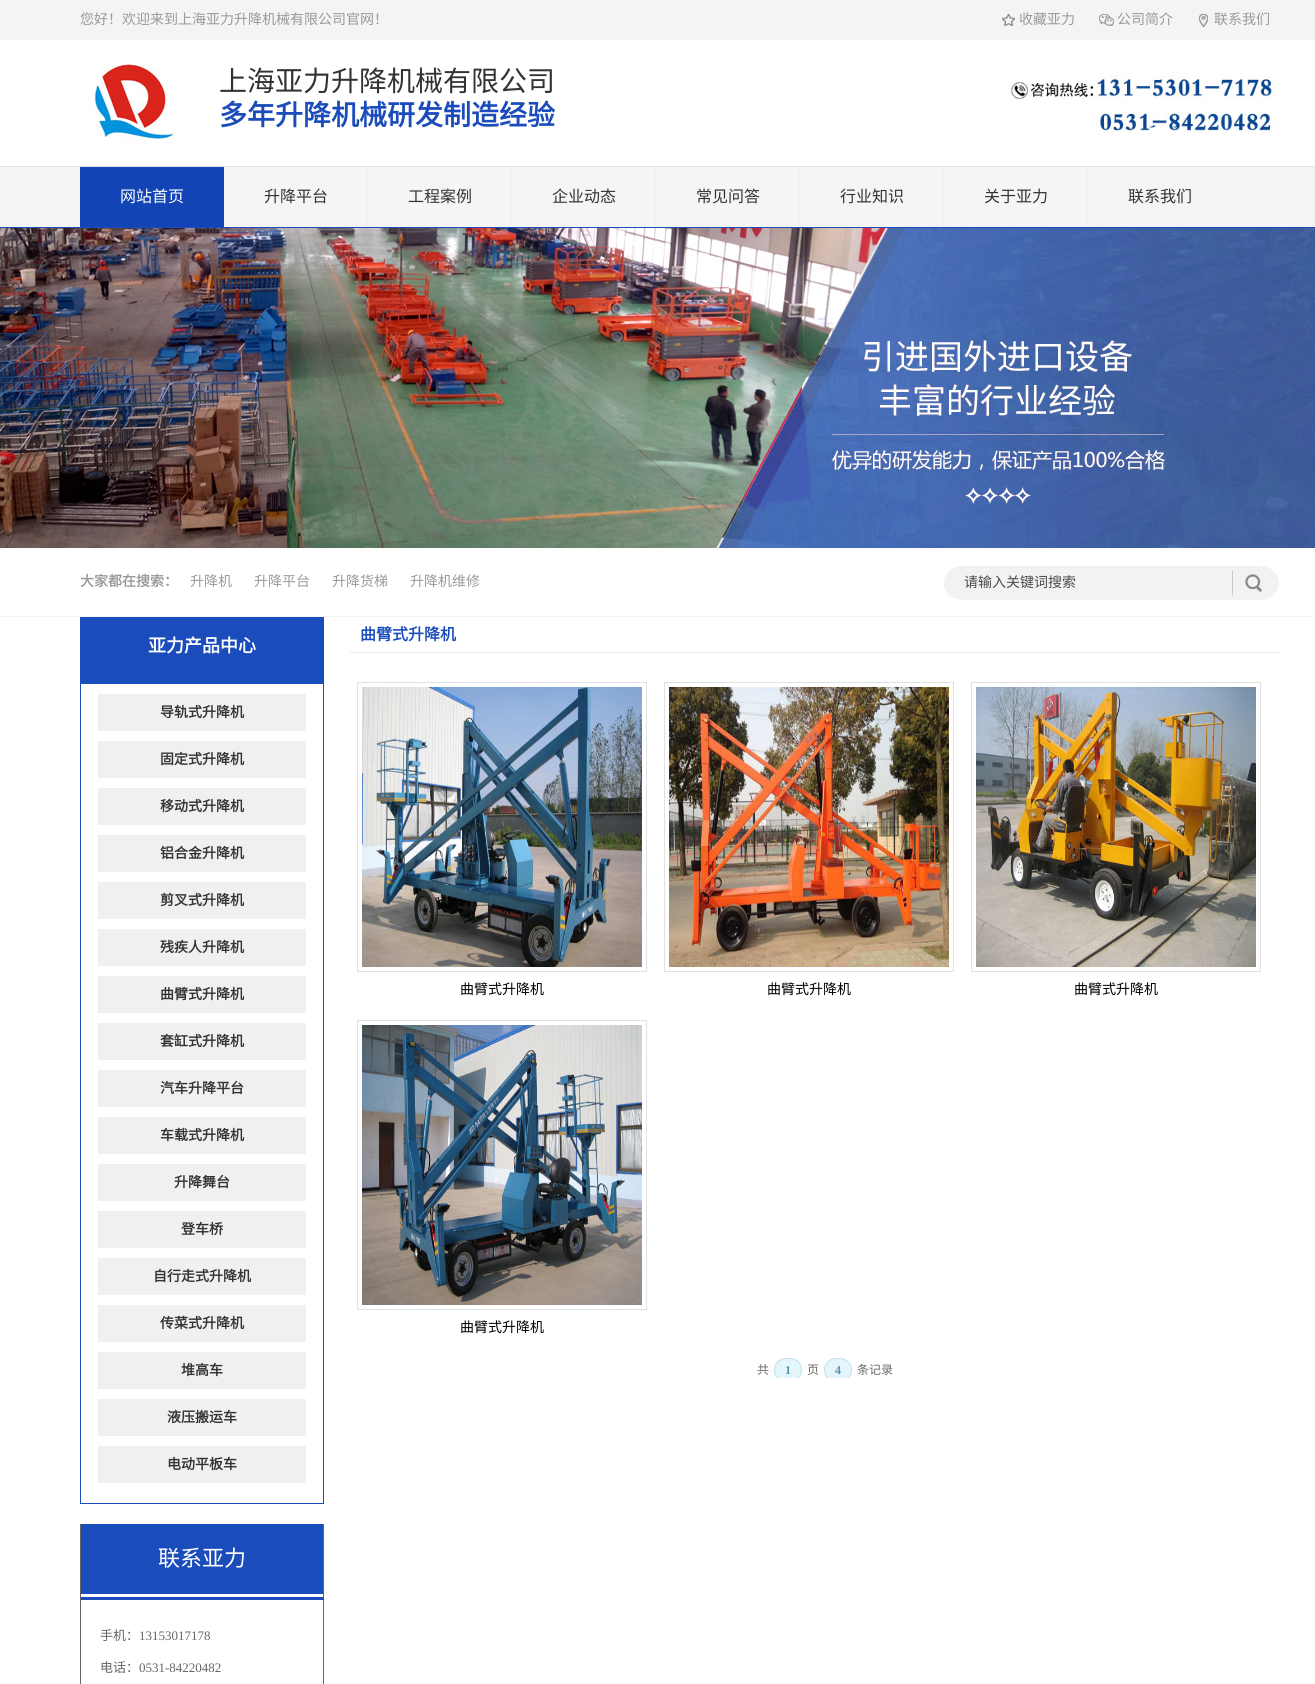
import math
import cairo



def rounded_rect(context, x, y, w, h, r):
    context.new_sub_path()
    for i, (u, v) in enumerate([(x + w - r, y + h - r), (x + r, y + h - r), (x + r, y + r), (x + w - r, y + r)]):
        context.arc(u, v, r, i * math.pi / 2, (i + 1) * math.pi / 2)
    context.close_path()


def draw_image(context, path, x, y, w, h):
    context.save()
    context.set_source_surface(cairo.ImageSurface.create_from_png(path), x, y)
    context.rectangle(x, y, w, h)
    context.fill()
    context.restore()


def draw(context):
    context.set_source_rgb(1, 1, 1)
    context.paint()
    context.set_source_rgb(244 / 255, 244 / 255, 244 / 255)
    context.rectangle(0, 0, 1315, 40)
    context.fill()
    draw_image(context, "images/1.png", 1002, 14, 13, 12)
    draw_image(context, "images/2.png", 1099, 14, 15, 12)
    draw_image(context, "images/3.png", 1199, 14, 9, 13)
    draw_image(context, "images/4.png", 88, 61, 88, 80)
    draw_image(context, "images/5.png", 1011, 75, 264, 56)
    context.set_source_rgb(245 / 255, 245 / 255, 245 / 255)
    context.rectangle(0, 167, 1315, 60)
    context.fill()
    context.set_source_rgb(227 / 255, 227 / 255, 227 / 255)
    context.rectangle(0, 166, 1315, 1)
    context.fill()
    context.set_source_rgb(28 / 255, 76 / 255, 187 / 255)
    context.rectangle(0, 227, 1315, 1)
    context.fill()
    context.set_source_rgb(18 / 255, 68 / 255, 181 / 255)
    context.rectangle(80, 167, 144, 60)
    context.fill()
    context.set_source_rgb(238 / 255, 238 / 255, 238 / 255)
    context.rectangle(367, 168, 1, 57)
    context.fill()
    context.rectangle(511, 168, 1, 57)
    context.fill()
    context.rectangle(655, 168, 1, 57)
    context.fill()
    context.rectangle(799, 168, 1, 57)
    context.fill()
    context.rectangle(943, 168, 1, 57)
    context.fill()
    context.rectangle(1087, 168, 1, 57)
    context.fill()
    draw_image(context, "images/6.png", 0, 228, 1315, 320)
    context.set_source_rgb(245 / 255, 245 / 255, 245 / 255)
    context.rectangle(0, 616, 1315, 1)
    context.fill()
    draw_image(context, "images/7.png", 944, 566, 288, 34)
    draw_image(context, "images/8.png", 1232, 566, 47, 34)
    context.set_source_rgb(27 / 255, 76 / 255, 187 / 255)
    context.rectangle(80, 617, 244, 66)
    context.fill()
    context.rectangle(80.5, 683.5, 243, 820)
    context.set_line_width(1)
    context.stroke()
    context.set_source_rgb(240 / 255, 240 / 255, 240 / 255)
    context.rectangle(98, 694, 208, 37)
    context.fill()
    context.rectangle(98, 741, 208, 37)
    context.fill()
    context.rectangle(98, 788, 208, 37)
    context.fill()
    context.rectangle(98, 835, 208, 37)
    context.fill()
    context.rectangle(98, 882, 208, 37)
    context.fill()
    context.rectangle(98, 929, 208, 37)
    context.fill()
    context.rectangle(98, 976, 208, 37)
    context.fill()
    context.rectangle(98, 1023, 208, 37)
    context.fill()
    context.rectangle(98, 1070, 208, 37)
    context.fill()
    context.rectangle(98, 1117, 208, 37)
    context.fill()
    context.rectangle(98, 1164, 208, 37)
    context.fill()
    context.rectangle(98, 1211, 208, 37)
    context.fill()
    context.rectangle(98, 1258, 208, 37)
    context.fill()
    context.rectangle(98, 1305, 208, 37)
    context.fill()
    context.rectangle(98, 1352, 208, 37)
    context.fill()
    context.rectangle(98, 1399, 208, 37)
    context.fill()
    context.rectangle(98, 1446, 208, 37)
    context.fill()
    context.set_source_rgb(102 / 255, 102 / 255, 102 / 255)
    context.rectangle(323, 1524, 1, 160)
    context.fill()
    context.rectangle(80, 1524, 1, 160)
    context.fill()
    context.set_source_rgb(27 / 255, 76 / 255, 187 / 255)
    context.rectangle(81, 1524, 242, 70)
    context.fill()
    context.rectangle(81, 1597, 243, 3)
    context.fill()
    context.set_source_rgb(236 / 255, 236 / 255, 236 / 255)
    context.rectangle(350, 652, 930, 1)
    context.fill()
    context.rectangle(357.5, 682.5, 289, 289)
    context.set_source_rgb(225 / 255, 225 / 255, 225 / 255)
    context.stroke()
    draw_image(context, "images/9.png", 362, 687, 280, 280)
    context.rectangle(664.5, 682.5, 289, 289)
    context.stroke()
    draw_image(context, "images/10.png", 669, 687, 280, 280)
    context.rectangle(971.5, 682.5, 289, 289)
    context.stroke()
    draw_image(context, "images/11.png", 976, 687, 280, 280)
    context.rectangle(357.5, 1020.5, 289, 289)
    context.stroke()
    draw_image(context, "images/12.png", 362, 1025, 280, 280)
    context.save()
    context.rectangle(350, 617, 930, 761)
    context.clip()
    context.set_source_rgb(228 / 255, 246 / 255, 252 / 255)
    rounded_rect(context, 774.5, 1358.5, 27, 23, 11.5)
    context.fill_preserve()
    context.set_source_rgb(191 / 255, 223 / 255, 234 / 255)
    context.stroke()
    context.set_source_rgb(228 / 255, 246 / 255, 252 / 255)
    rounded_rect(context, 824.5, 1358.5, 27, 23, 11.5)
    context.fill_preserve()
    context.set_source_rgb(191 / 255, 223 / 255, 234 / 255)
    context.stroke()
    context.restore()
    context.select_font_face("Noto Sans CJK SC")
    context.set_font_size(14)
    context.set_source_rgb(153 / 255, 153 / 255, 153 / 255)
    context.move_to(80, 24)
    context.show_text("您好！欢迎来到上海亚力升降机械有限公司官网！")
    context.move_to(1019, 24)
    context.show_text("收藏亚力")
    context.move_to(1117, 24)
    context.show_text("公司简介")
    context.move_to(1214, 24)
    context.show_text("联系我们")
    context.set_font_size(28)
    context.set_source_rgb(51 / 255, 51 / 255, 51 / 255)
    context.move_to(219, 91)
    context.show_text("上海亚力升降机械有限公司")
    context.select_font_face("Noto Sans CJK SC", cairo.FontSlant.NORMAL, cairo.FontWeight.BOLD)
    context.set_source_rgb(27 / 255, 76 / 255, 187 / 255)
    context.move_to(219, 125)
    context.show_text("多年升降机械研发制造经验")
    context.select_font_face("Noto Sans CJK SC")
    context.set_font_size(16)
    context.set_source_rgb(1, 1, 1)
    context.move_to(120, 202)
    context.show_text("网站首页")
    context.set_source_rgb(51 / 255, 51 / 255, 51 / 255)
    context.move_to(264, 202)
    context.show_text("升降平台")
    context.move_to(408, 202)
    context.show_text("工程案例")
    context.move_to(552, 202)
    context.show_text("企业动态")
    context.move_to(696, 202)
    context.show_text("常见问答")
    context.move_to(840, 202)
    context.show_text("行业知识")
    context.move_to(984, 202)
    context.show_text("关于亚力")
    context.move_to(1128, 202)
    context.show_text("联系我们")
    context.select_font_face("Noto Sans CJK SC", cairo.FontSlant.NORMAL, cairo.FontWeight.BOLD)
    context.set_font_size(14)
    context.set_source_rgb(153 / 255, 153 / 255, 153 / 255)
    context.move_to(80, 586)
    context.show_text("大家都在搜索：")
    context.select_font_face("Noto Sans CJK SC")
    context.move_to(190, 586)
    context.show_text("升降机")
    context.move_to(254, 586)
    context.show_text("升降平台")
    context.move_to(332, 586)
    context.show_text("升降货梯")
    context.move_to(410, 586)
    context.show_text("升降机维修")
    context.set_source_rgb(73 / 255, 73 / 255, 73 / 255)
    context.move_to(964, 587)
    context.show_text("请输入关键词搜索")
    context.select_font_face("Noto Sans CJK SC", cairo.FontSlant.NORMAL, cairo.FontWeight.BOLD)
    context.set_font_size(18)
    context.set_source_rgb(1, 1, 1)
    context.move_to(148, 652)
    context.show_text("亚力产品中心")
    context.set_font_size(14)
    context.set_source_rgb(51 / 255, 51 / 255, 51 / 255)
    context.move_to(160, 717)
    context.show_text("导轨式升降机")
    context.move_to(160, 764)
    context.show_text("固定式升降机")
    context.move_to(160, 811)
    context.show_text("移动式升降机")
    context.move_to(160, 858)
    context.show_text("铝合金升降机")
    context.move_to(160, 905)
    context.show_text("剪叉式升降机")
    context.move_to(160, 952)
    context.show_text("残疾人升降机")
    context.move_to(160, 999)
    context.show_text("曲臂式升降机")
    context.move_to(160, 1046)
    context.show_text("套缸式升降机")
    context.move_to(160, 1093)
    context.show_text("汽车升降平台")
    context.move_to(160, 1140)
    context.show_text("车载式升降机")
    context.move_to(174, 1187)
    context.show_text("升降舞台")
    context.move_to(181, 1234)
    context.show_text("登车桥")
    context.move_to(153, 1281)
    context.show_text("自行走式升降机")
    context.move_to(160, 1328)
    context.show_text("传菜式升降机")
    context.move_to(181, 1375)
    context.show_text("堆高车")
    context.move_to(167, 1422)
    context.show_text("液压搬运车")
    context.move_to(167, 1469)
    context.show_text("电动平板车")
    context.select_font_face("Noto Sans CJK SC")
    context.set_font_size(22)
    context.set_source_rgb(1, 1, 1)
    context.move_to(158, 1566)
    context.show_text("联系亚力")
    context.set_font_size(13)
    context.set_source_rgb(102 / 255, 102 / 255, 102 / 255)
    context.move_to(100, 1640)
    context.show_text("手机：")
    context.select_font_face("Liberation Serif")
    context.move_to(139, 1640)
    context.show_text("13153017178")
    context.select_font_face("Noto Sans CJK SC")
    context.move_to(100, 1672)
    context.show_text("电话：")
    context.select_font_face("Liberation Serif")
    context.move_to(139, 1672)
    context.show_text("0531-84220482")
    context.select_font_face("Noto Sans CJK SC", cairo.FontSlant.NORMAL, cairo.FontWeight.BOLD)
    context.set_font_size(16)
    context.set_source_rgb(27 / 255, 76 / 255, 187 / 255)
    context.move_to(360, 640)
    context.show_text("曲臂式升降机")
    context.select_font_face("Noto Sans CJK SC")
    context.set_font_size(14)
    context.set_source_rgb(0, 0, 0)
    context.move_to(460, 994)
    context.show_text("曲臂式升降机")
    context.move_to(767, 994)
    context.show_text("曲臂式升降机")
    context.move_to(1074, 994)
    context.show_text("曲臂式升降机")
    context.move_to(460, 1332)
    context.show_text("曲臂式升降机")
    context.set_font_size(12)
    context.set_source_rgb(102 / 255, 102 / 255, 102 / 255)
    context.move_to(757, 1374)
    context.show_text("共")
    context.select_font_face("Liberation Serif", cairo.FontSlant.NORMAL, cairo.FontWeight.BOLD)
    context.set_source_rgb(83 / 255, 148 / 255, 170 / 255)
    context.move_to(785, 1374)
    context.show_text("1")
    context.select_font_face("Noto Sans CJK SC")
    context.set_source_rgb(102 / 255, 102 / 255, 102 / 255)
    context.move_to(807, 1374)
    context.show_text("页")
    context.select_font_face("Liberation Serif", cairo.FontSlant.NORMAL, cairo.FontWeight.BOLD)
    context.set_source_rgb(83 / 255, 148 / 255, 170 / 255)
    context.move_to(835, 1374)
    context.show_text("4")
    context.select_font_face("Noto Sans CJK SC")
    context.set_source_rgb(102 / 255, 102 / 255, 102 / 255)
    context.move_to(857, 1374)
    context.show_text("条记录")


surface = cairo.ImageSurface(cairo.Format.RGB24, 1315, 1684)
context = cairo.Context(surface)
options = cairo.FontOptions()
options.set_hint_metrics(cairo.HintMetrics.OFF)
options.set_hint_style(cairo.HintStyle.NONE)
context.set_font_options(options)
context.set_miter_limit(4)
draw(context)
surface.write_to_png("out.png")
